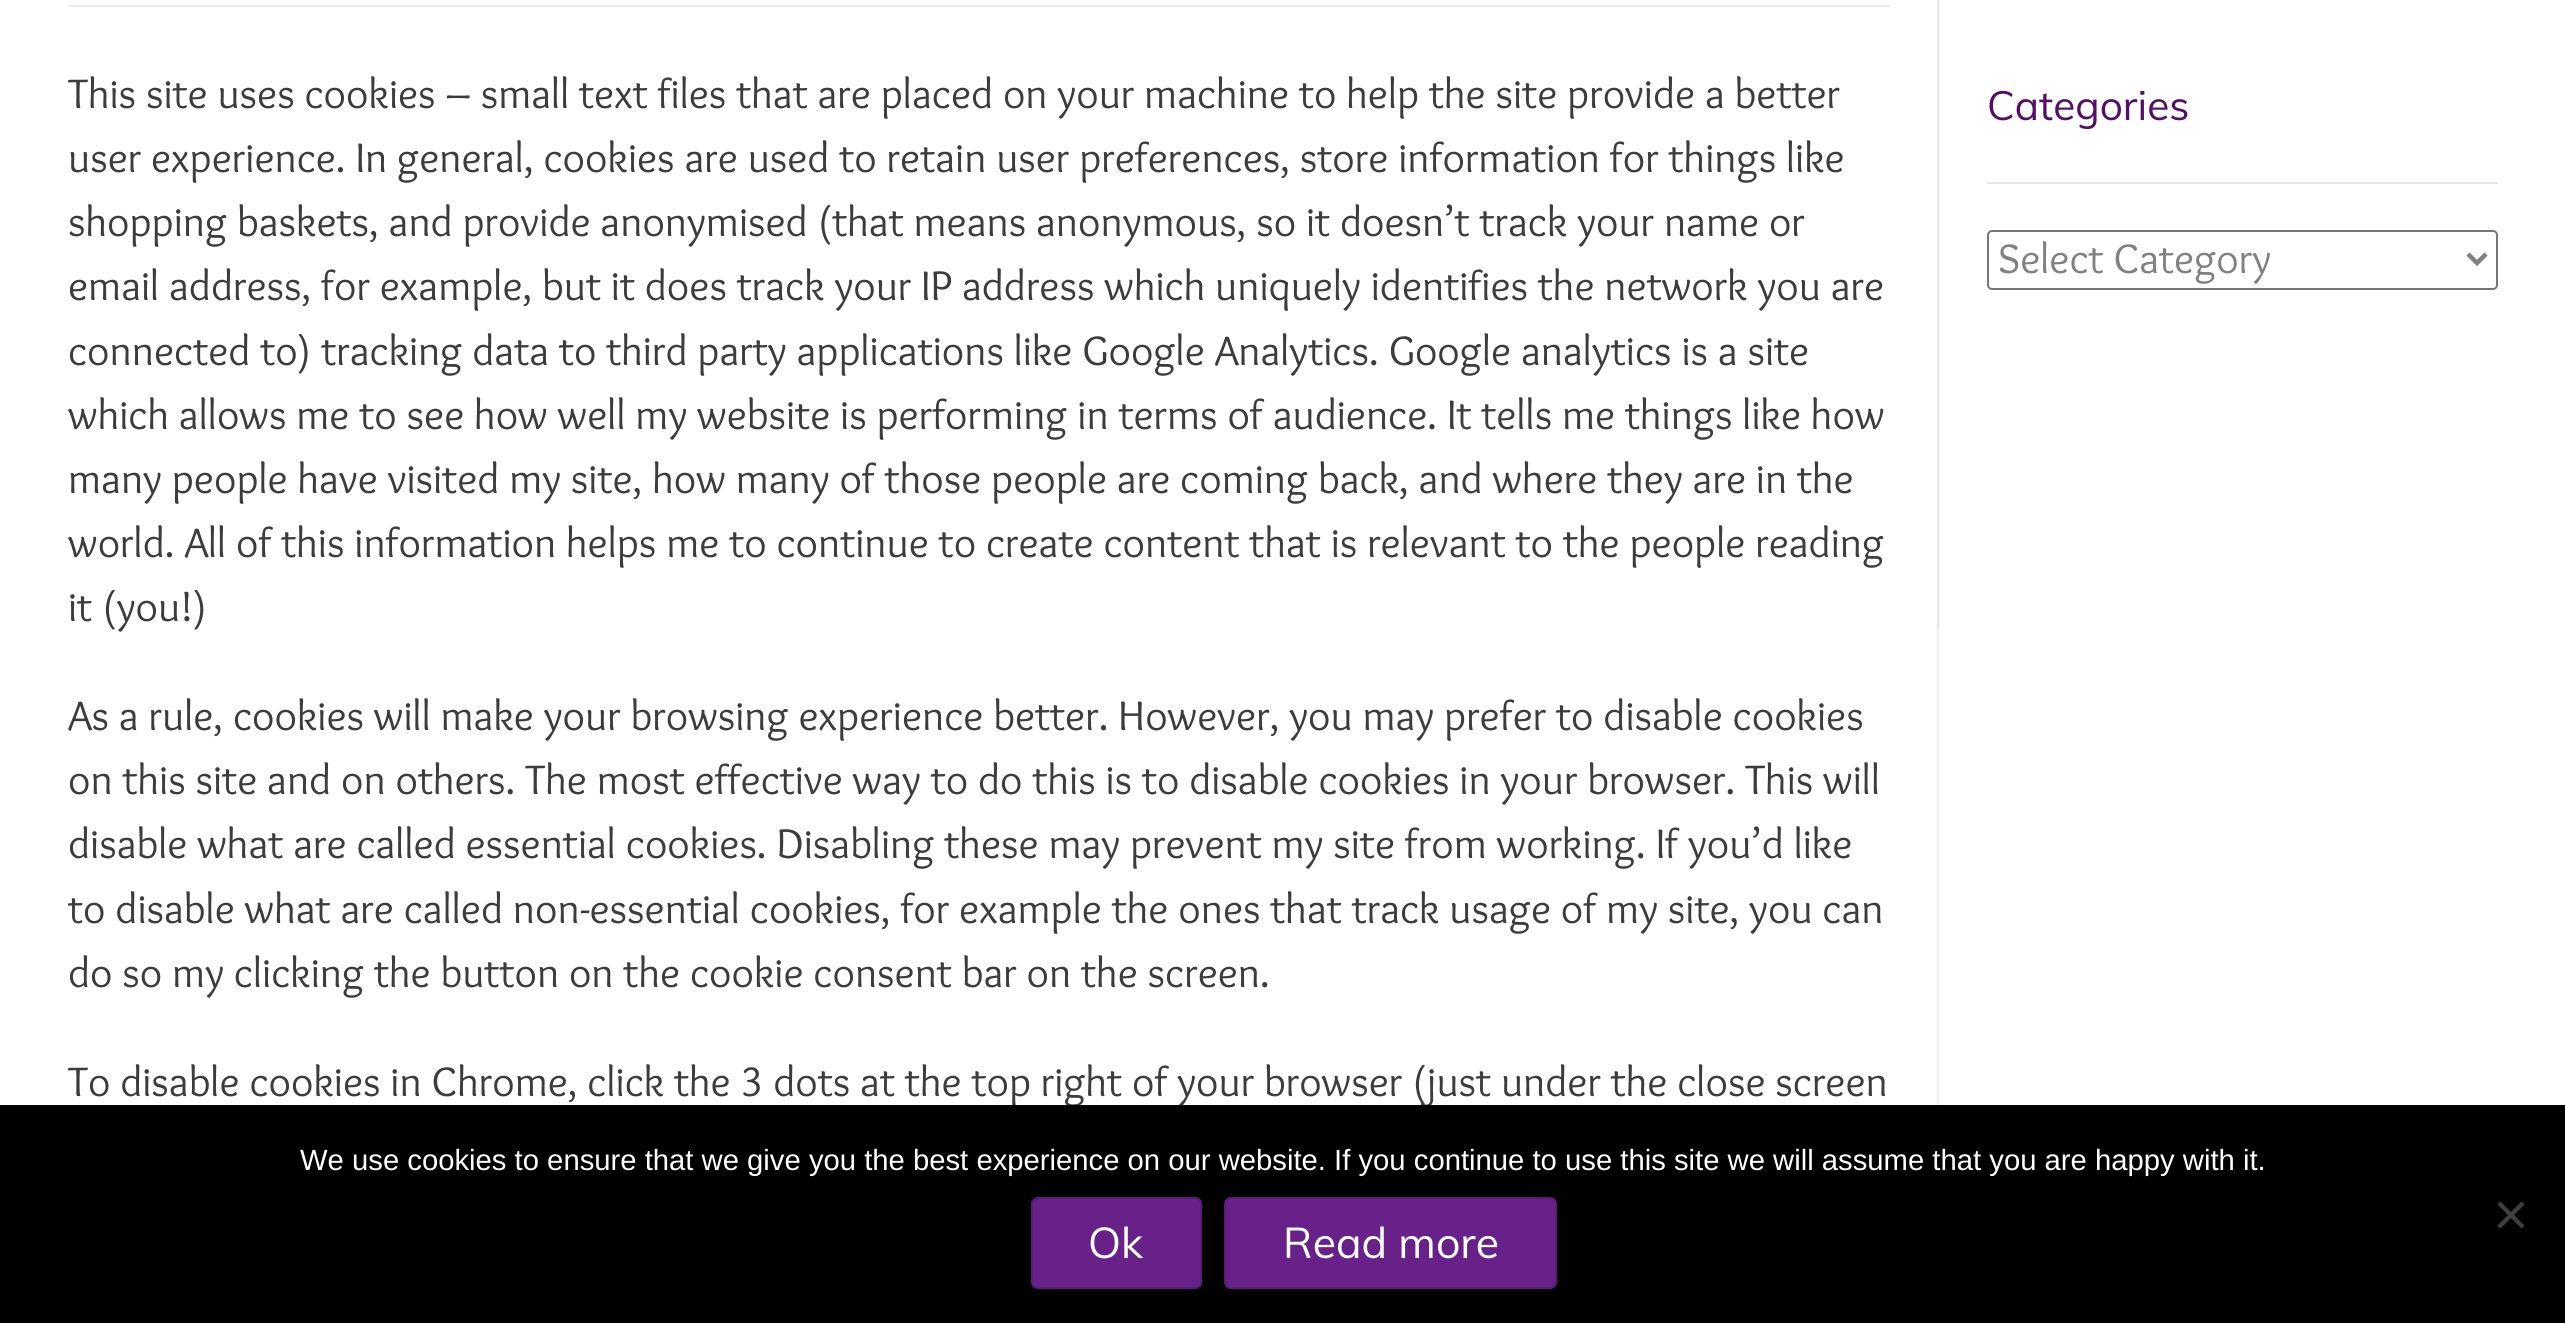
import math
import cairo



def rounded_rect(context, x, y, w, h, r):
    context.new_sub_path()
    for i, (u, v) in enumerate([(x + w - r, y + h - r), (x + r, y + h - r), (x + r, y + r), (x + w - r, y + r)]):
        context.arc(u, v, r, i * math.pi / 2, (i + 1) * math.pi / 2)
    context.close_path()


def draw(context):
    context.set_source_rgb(1, 1, 1)
    context.paint()
    context.set_source_rgb(245 / 255, 245 / 255, 245 / 255)
    context.new_path()
    context.move_to(1937, -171)
    context.line_to(1937, 628)
    context.line_to(2495, 628)
    context.line_to(1940, 628)
    context.line_to(1940, -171)
    context.close_path()
    context.fill()
    context.set_source_rgba(0, 0, 0, 0.06)
    context.rectangle(1937, 0, 2, 1105)
    context.fill()
    context.set_source_rgb(235 / 255, 235 / 255, 235 / 255)
    context.rectangle(68, 5, 1822, 2)
    context.fill()
    context.set_source_rgb(230 / 255, 230 / 255, 230 / 255)
    context.rectangle(1987, 182, 511, 2)
    context.fill()
    rounded_rect(context, 1988, 231, 509, 58, 4)
    context.set_source_rgb(118 / 255, 118 / 255, 118 / 255)
    context.stroke()
    context.new_path()
    context.move_to(2468, 254)
    context.line_to(2477, 263)
    context.line_to(2486, 254)
    context.set_source_rgb(128 / 255, 128 / 255, 128 / 255)
    context.set_line_width(4.5)
    context.stroke()
    context.select_font_face("Overlock")
    context.set_font_size(42.75)
    context.set_source_rgb(60 / 255, 60 / 255, 60 / 255)
    context.move_to(68, 108)
    context.show_text("This site uses cookies – small text files that are placed on your machine to help the site provide a better")
    context.move_to(68, 172)
    context.show_text("user experience. In general, cookies are used to retain user preferences, store information for things like")
    context.move_to(68, 236)
    context.show_text("shopping baskets, and provide anonymised (that means anonymous, so it doesn’t track your name or")
    context.move_to(68, 300)
    context.show_text("email address, for example, but it does track your IP address which uniquely identifies the network you are")
    context.move_to(68, 365)
    context.show_text("connected to) tracking data to third party applications like Google Analytics. Google analytics is a site")
    context.move_to(68, 429)
    context.show_text("which allows me to see how well my website is performing in terms of audience. It tells me things like how")
    context.move_to(68, 493)
    context.show_text("many people have visited my site, how many of those people are coming back, and where they are in the")
    context.move_to(68, 557)
    context.show_text("world. All of this information helps me to continue to create content that is relevant to the people reading")
    context.move_to(68, 621)
    context.show_text("it (you!)")
    context.move_to(68, 730)
    context.show_text("As a rule, cookies will make your browsing experience better. However, you may prefer to disable cookies")
    context.move_to(68, 794)
    context.show_text("on this site and on others. The most effective way to do this is to disable cookies in your browser. This will")
    context.move_to(68, 858)
    context.show_text("disable what are called essential cookies. Disabling these may prevent my site from working. If you’d like")
    context.move_to(68, 923)
    context.show_text("to disable what are called non-essential cookies, for example the ones that track usage of my site, you can")
    context.move_to(68, 987)
    context.show_text("do so my clicking the button on the cookie consent bar on the screen.")
    context.move_to(68, 1096)
    context.show_text("To disable cookies in Chrome, click the 3 dots at the top right of your browser (just under the close screen")
    context.select_font_face("Muli")
    context.set_font_size(40.5)
    context.set_source_rgb(85 / 255, 14 / 255, 104 / 255)
    context.move_to(1987, 120)
    context.show_text("Categories")
    context.select_font_face("Overlock")
    context.set_font_size(42.75)
    context.set_source_rgb(128 / 255, 128 / 255, 128 / 255)
    context.move_to(1998, 273)
    context.show_text("Select Category")
    context.set_source_rgb(0, 0, 0)
    context.rectangle(0, 1105, 2565, 218)
    context.fill()
    context.select_font_face("Liberation Sans")
    context.set_font_size(29.25)
    context.set_source_rgb(1, 1, 1)
    context.move_to(300, 1170)
    context.show_text("We use cookies to ensure that we give you the best experience on our website. If you continue to use this site we will assume that you are happy with it.")
    context.set_source_rgb(64 / 255, 64 / 255, 64 / 255)
    context.new_path()
    context.move_to(2521.5, 1201.5)
    context.line_to(2524.5, 1204.5)
    context.line_to(2500.5, 1228.5)
    context.line_to(2497.5, 1225.5)
    context.close_path()
    context.fill()
    context.new_path()
    context.move_to(2497.5, 1204.5)
    context.line_to(2500.5, 1201.5)
    context.line_to(2524.5, 1225.5)
    context.line_to(2521.5, 1228.5)
    context.close_path()
    context.fill()
    context.set_source_rgb(104 / 255, 33 / 255, 137 / 255)
    rounded_rect(context, 1031, 1197, 171, 92, 7)
    context.fill()
    rounded_rect(context, 1032, 1198, 169, 90, 6)
    context.set_source_rgba(0, 0, 0, 0.14)
    context.set_line_width(2)
    context.stroke()
    context.select_font_face("Muli")
    context.set_font_size(42.75)
    context.set_source_rgb(1, 1, 1)
    context.move_to(1088, 1258)
    context.show_text("Ok")
    context.set_source_rgb(104 / 255, 33 / 255, 137 / 255)
    rounded_rect(context, 1224, 1197, 333, 92, 7)
    context.fill()
    rounded_rect(context, 1225, 1198, 331, 90, 6)
    context.set_source_rgba(0, 0, 0, 0.14)
    context.stroke()
    context.set_source_rgb(1, 1, 1)
    context.move_to(1283, 1258)
    context.show_text("Read more")


surface = cairo.ImageSurface(cairo.Format.RGB24, 2565, 1323)
context = cairo.Context(surface)
options = cairo.FontOptions()
options.set_hint_metrics(cairo.HintMetrics.OFF)
options.set_hint_style(cairo.HintStyle.NONE)
context.set_font_options(options)
context.set_miter_limit(4)
draw(context)
surface.write_to_png("out.png")
